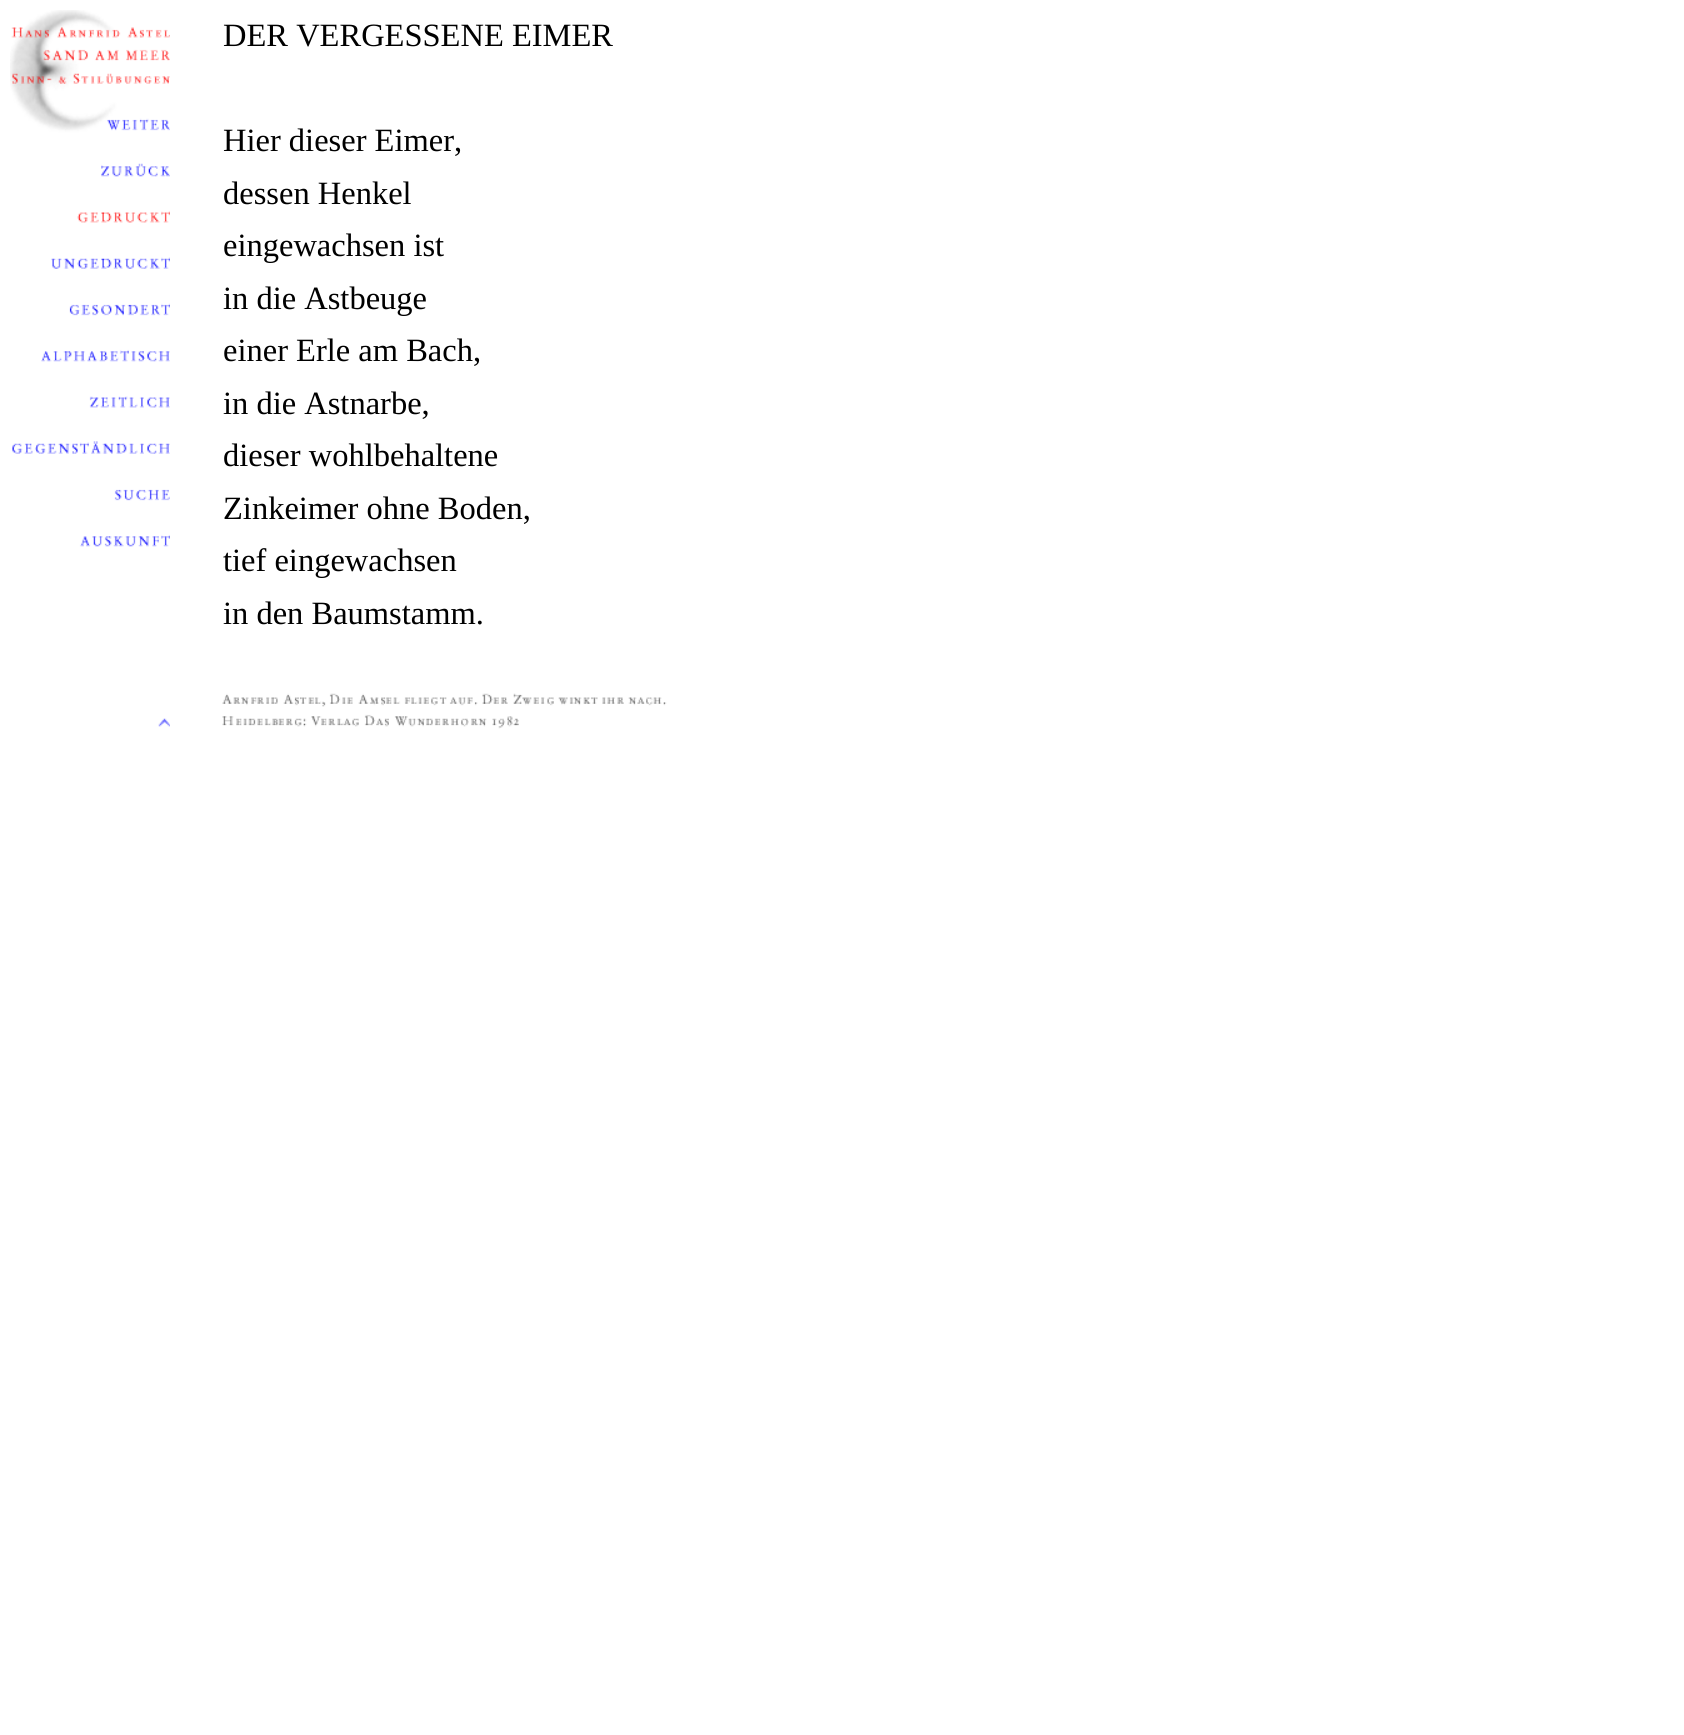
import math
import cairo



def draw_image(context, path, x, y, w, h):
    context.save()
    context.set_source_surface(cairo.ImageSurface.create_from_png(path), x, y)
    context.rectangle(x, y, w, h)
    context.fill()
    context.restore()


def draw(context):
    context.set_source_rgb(1, 1, 1)
    context.paint()
    draw_image(context, "images/1.png", 10, 10, 160, 537)
    draw_image(context, "images/2.png", 158, 718, 12, 9)
    draw_image(context, "images/3.png", 222, 693, 445, 36)
    context.select_font_face("Liberation Serif")
    context.set_font_size(32.5)
    context.set_source_rgb(0, 0, 0)
    context.move_to(223, 46)
    context.show_text("DER VERGESSENE EIMER")
    context.move_to(223, 151)
    context.show_text("Hier dieser Eimer,")
    context.move_to(223, 204)
    context.show_text("dessen Henkel")
    context.move_to(223, 256)
    context.show_text("eingewachsen ist")
    context.move_to(223, 309)
    context.show_text("in die Astbeuge")
    context.move_to(223, 361)
    context.show_text("einer Erle am Bach,")
    context.move_to(223, 414)
    context.show_text("in die Astnarbe,")
    context.move_to(223, 466)
    context.show_text("dieser wohlbehaltene")
    context.move_to(223, 519)
    context.show_text("Zinkeimer ohne Boden,")
    context.move_to(223, 571)
    context.show_text("tief eingewachsen")
    context.move_to(223, 624)
    context.show_text("in den Baumstamm.")


surface = cairo.ImageSurface(cairo.Format.RGB24, 1684, 1735)
context = cairo.Context(surface)
options = cairo.FontOptions()
options.set_hint_metrics(cairo.HintMetrics.OFF)
options.set_hint_style(cairo.HintStyle.NONE)
context.set_font_options(options)
context.set_miter_limit(4)
draw(context)
surface.write_to_png("out.png")
